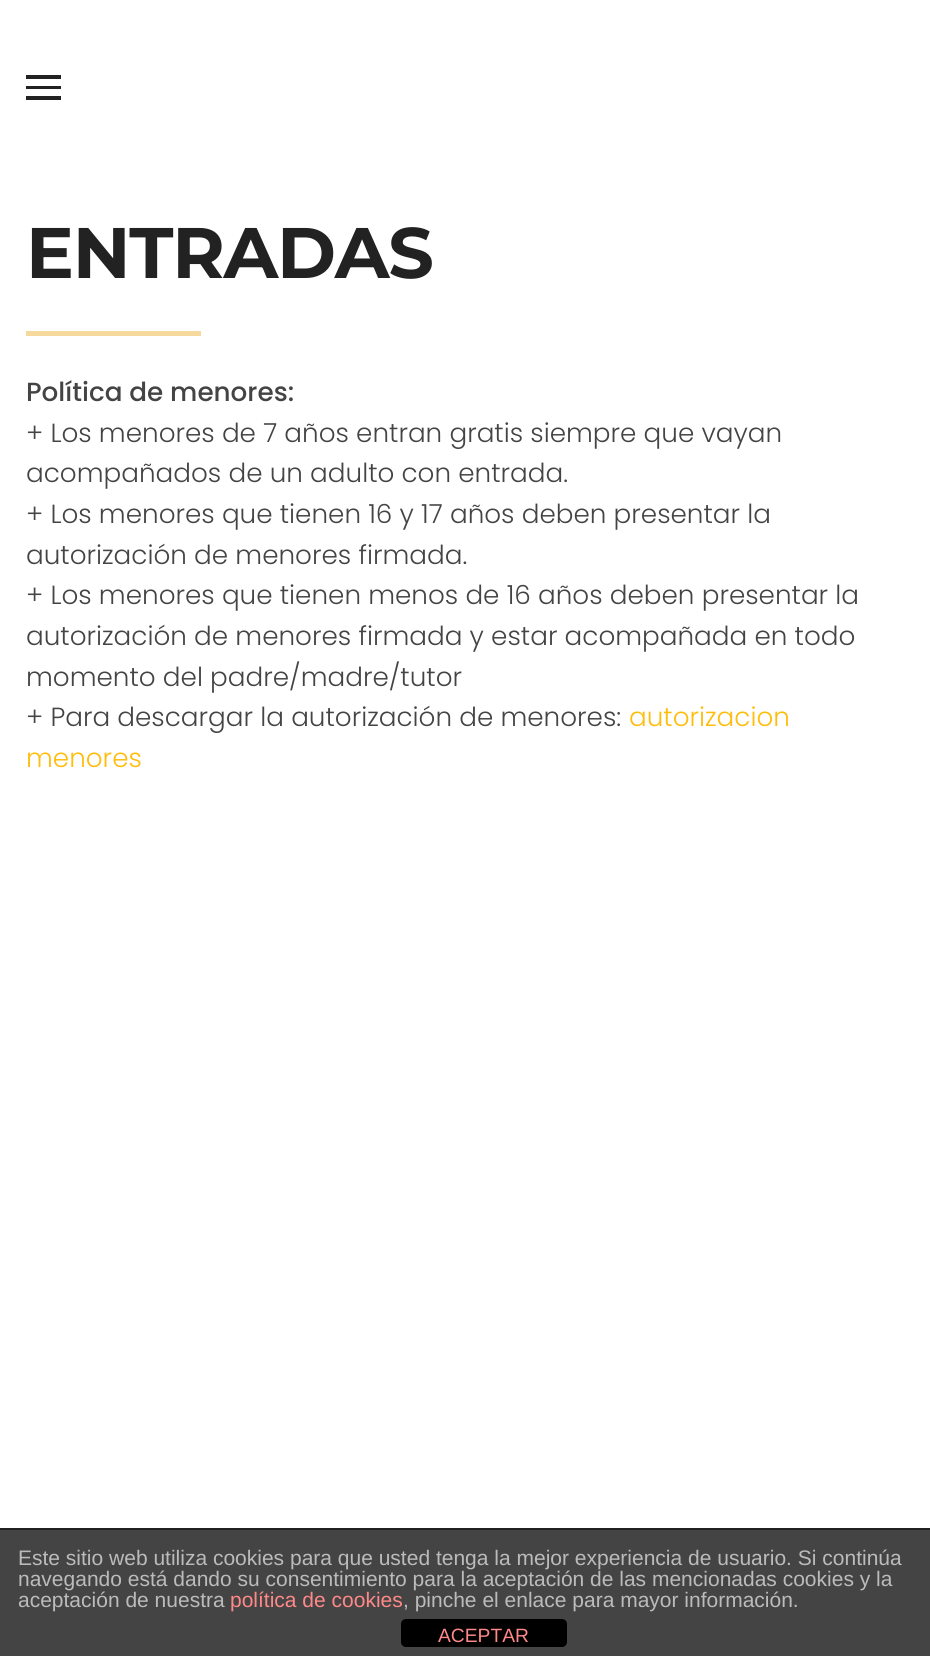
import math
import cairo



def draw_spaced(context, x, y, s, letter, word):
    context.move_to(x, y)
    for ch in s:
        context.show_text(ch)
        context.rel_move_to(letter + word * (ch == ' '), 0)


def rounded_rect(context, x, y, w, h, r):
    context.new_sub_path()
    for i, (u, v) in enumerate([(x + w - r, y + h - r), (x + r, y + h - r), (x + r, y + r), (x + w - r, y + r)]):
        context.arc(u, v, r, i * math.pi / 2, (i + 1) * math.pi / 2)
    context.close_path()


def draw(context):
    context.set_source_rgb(1, 1, 1)
    context.paint()
    context.set_source_rgb(34 / 255, 34 / 255, 34 / 255)
    context.rectangle(26, 75, 35, 4)
    context.fill()
    context.rectangle(26, 86, 35, 3)
    context.fill()
    context.rectangle(26, 96, 35, 4)
    context.fill()
    context.set_source_rgb(246 / 255, 217 / 255, 157 / 255)
    context.rectangle(26, 331, 175, 5)
    context.fill()
    context.set_source_rgb(68 / 255, 68 / 255, 68 / 255)
    context.rectangle(0, 1530, 930, 126)
    context.fill()
    context.set_source_rgb(34 / 255, 34 / 255, 34 / 255)
    context.rectangle(0, 1528, 930, 2)
    context.fill()
    context.set_source_rgb(0, 0, 0)
    rounded_rect(context, 401, 1619, 166, 28, 5)
    context.fill()
    context.select_font_face("Montserrat Thin")
    context.set_font_size(71.5)
    context.set_source_rgb(34 / 255, 34 / 255, 34 / 255)
    draw_spaced(context, 26, 278, "ENTRADAS", -1.25, 0)
    context.select_font_face("Poppins Medium")
    context.set_font_size(26.25)
    context.set_source_rgb(68 / 255, 68 / 255, 68 / 255)
    context.move_to(26, 401)
    context.show_text("Política de menores:")
    context.select_font_face("Poppins Light")
    context.move_to(26, 442)
    context.show_text("+ Los menores de 7 años entran gratis siempre que vayan")
    context.move_to(26, 482)
    context.show_text("acompañados de un adulto con entrada.")
    context.move_to(26, 523)
    context.show_text("+ Los menores que tienen 16 y 17 años deben presentar la")
    context.move_to(26, 564)
    context.show_text("autorización de menores firmada.")
    context.move_to(26, 604)
    context.show_text("+ Los menores que tienen menos de 16 años deben presentar la")
    context.move_to(26, 645)
    context.show_text("autorización de menores firmada y estar acompañada en todo")
    context.move_to(26, 686)
    context.show_text("momento del padre/madre/tutor")
    context.move_to(26, 726)
    context.show_text("+ Para descargar la autorización de menores:")
    context.set_source_rgb(1, 189 / 255, 11 / 255)
    context.move_to(629, 726)
    context.show_text("autorizacion")
    context.move_to(26, 767)
    context.show_text("menores")
    context.select_font_face("Liberation Sans")
    context.set_font_size(21)
    context.set_source_rgb(187 / 255, 187 / 255, 187 / 255)
    context.move_to(18, 1565)
    context.show_text("Este sitio web utiliza cookies para que usted tenga la mejor experiencia de usuario. Si continúa")
    context.move_to(18, 1586)
    context.show_text("navegando está dando su consentimiento para la aceptación de las mencionadas cookies y la")
    context.move_to(18, 1607)
    context.show_text("aceptación de nuestra")
    context.set_source_rgb(1, 136 / 255, 136 / 255)
    context.move_to(230, 1607)
    context.show_text("política de cookies")
    context.set_source_rgb(187 / 255, 187 / 255, 187 / 255)
    context.move_to(403, 1607)
    context.show_text(", pinche el enlace para mayor información.")
    context.set_font_size(19.25)
    context.set_source_rgb(1, 136 / 255, 136 / 255)
    context.move_to(438, 1642)
    context.show_text("ACEPTAR")


surface = cairo.ImageSurface(cairo.Format.RGB24, 930, 1656)
context = cairo.Context(surface)
options = cairo.FontOptions()
options.set_hint_metrics(cairo.HintMetrics.OFF)
options.set_hint_style(cairo.HintStyle.NONE)
context.set_font_options(options)
context.set_miter_limit(4)
draw(context)
surface.write_to_png("out.png")
